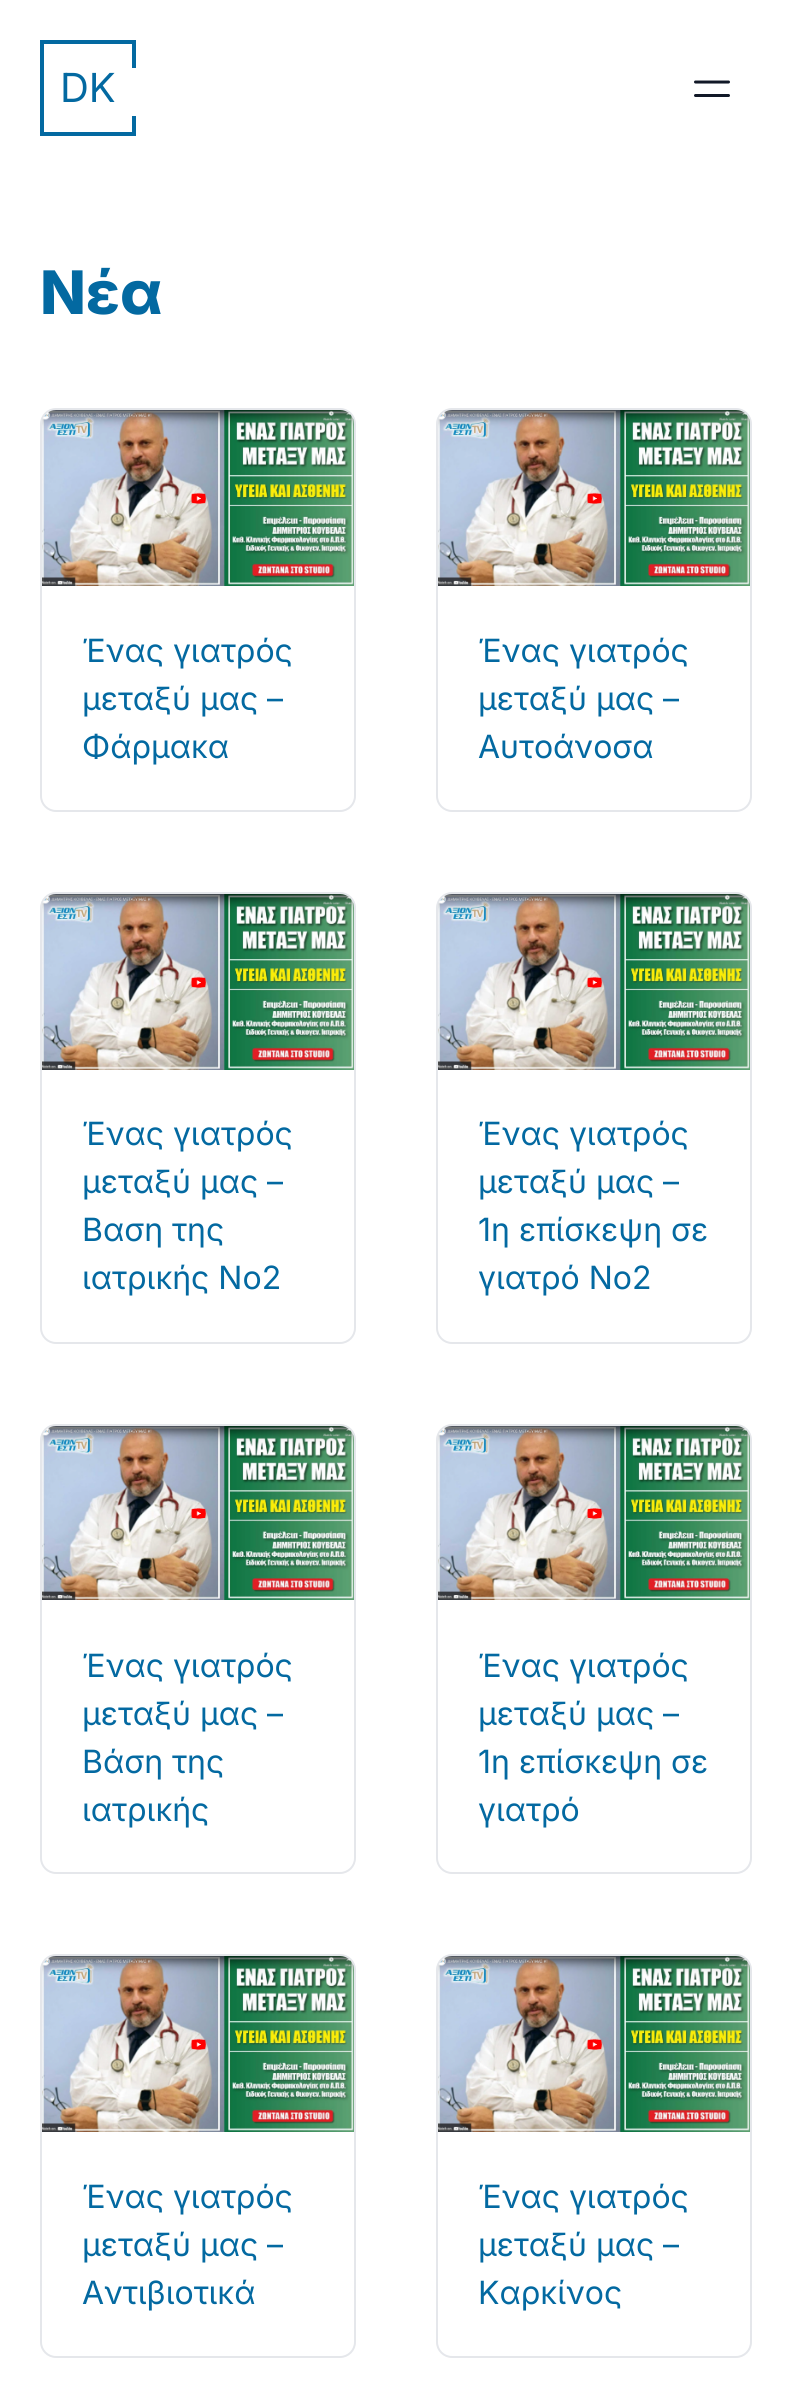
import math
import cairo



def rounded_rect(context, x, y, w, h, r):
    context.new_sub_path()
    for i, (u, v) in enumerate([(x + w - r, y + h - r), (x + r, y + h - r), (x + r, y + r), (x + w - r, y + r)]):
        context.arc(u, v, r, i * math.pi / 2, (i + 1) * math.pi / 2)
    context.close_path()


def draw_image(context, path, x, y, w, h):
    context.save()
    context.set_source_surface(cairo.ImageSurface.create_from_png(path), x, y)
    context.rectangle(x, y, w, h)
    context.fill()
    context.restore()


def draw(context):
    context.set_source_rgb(1, 1, 1)
    context.paint()
    context.rectangle(42, 42, 92, 92)
    context.set_source_rgb(3 / 255, 105 / 255, 161 / 255)
    context.set_line_width(4)
    context.stroke()
    context.set_source_rgb(1, 1, 1)
    context.rectangle(132, 68, 4, 48)
    context.fill()
    context.new_path()
    context.move_to(695.5, 82)
    context.line_to(728.5, 82)
    context.move_to(695.5, 95.5)
    context.line_to(728.5, 95.5)
    context.set_source_rgb(17 / 255, 24 / 255, 39 / 255)
    context.set_line_width(3)
    context.set_line_cap(cairo.LineCap.ROUND)
    context.set_line_join(cairo.LineJoin.ROUND)
    context.stroke()
    rounded_rect(context, 41, 409, 314, 402, 15)
    context.set_source_rgb(229 / 255, 231 / 255, 235 / 255)
    context.set_line_width(2)
    context.set_line_cap(cairo.LineCap.BUTT)
    context.set_line_join(cairo.LineJoin.MITER)
    context.stroke()
    draw_image(context, "images/1.png", 42, 410, 312, 176)
    rounded_rect(context, 437, 409, 314, 402, 15)
    context.stroke()
    draw_image(context, "images/1.png", 438, 410, 312, 176)
    rounded_rect(context, 41, 893, 314, 450, 15)
    context.stroke()
    draw_image(context, "images/1.png", 42, 894, 312, 176)
    rounded_rect(context, 437, 893, 314, 450, 15)
    context.stroke()
    draw_image(context, "images/1.png", 438, 894, 312, 176)
    rounded_rect(context, 41, 1425, 314, 448, 15)
    context.stroke()
    draw_image(context, "images/2.png", 42, 1426, 312, 174)
    rounded_rect(context, 437, 1425, 314, 448, 15)
    context.stroke()
    draw_image(context, "images/2.png", 438, 1426, 312, 174)
    rounded_rect(context, 41, 1955, 314, 402, 15)
    context.stroke()
    draw_image(context, "images/1.png", 42, 1956, 312, 176)
    rounded_rect(context, 437, 1955, 314, 402, 15)
    context.stroke()
    draw_image(context, "images/1.png", 438, 1956, 312, 176)
    context.select_font_face("Inter")
    context.set_font_size(40)
    context.set_source_rgb(3 / 255, 105 / 255, 161 / 255)
    context.move_to(60, 102)
    context.show_text("DK")
    context.select_font_face("Inter ExtraBold")
    context.set_font_size(60)
    context.move_to(40, 314)
    context.show_text("Νέα")
    context.select_font_face("Inter")
    context.set_font_size(32)
    context.move_to(82, 662)
    context.show_text("Ένας γιατρός")
    context.move_to(82, 710)
    context.show_text("μεταξύ μας –")
    context.move_to(82, 758)
    context.show_text("Φάρμακα")
    context.move_to(478, 662)
    context.show_text("Ένας γιατρός")
    context.move_to(478, 710)
    context.show_text("μεταξύ μας –")
    context.move_to(478, 758)
    context.show_text("Αυτοάνοσα")
    context.move_to(82, 1145)
    context.show_text("Ένας γιατρός")
    context.move_to(82, 1193)
    context.show_text("μεταξύ μας –")
    context.move_to(82, 1241)
    context.show_text("Βαση της")
    context.move_to(82, 1289)
    context.show_text("ιατρικής Νο2")
    context.move_to(478, 1145)
    context.show_text("Ένας γιατρός")
    context.move_to(478, 1193)
    context.show_text("μεταξύ μας –")
    context.move_to(478, 1241)
    context.show_text("1η επίσκεψη σε")
    context.move_to(478, 1289)
    context.show_text("γιατρό Νο2")
    context.move_to(82, 1677)
    context.show_text("Ένας γιατρός")
    context.move_to(82, 1725)
    context.show_text("μεταξύ μας –")
    context.move_to(82, 1773)
    context.show_text("Βάση της")
    context.move_to(82, 1821)
    context.show_text("ιατρικής")
    context.move_to(478, 1677)
    context.show_text("Ένας γιατρός")
    context.move_to(478, 1725)
    context.show_text("μεταξύ μας –")
    context.move_to(478, 1773)
    context.show_text("1η επίσκεψη σε")
    context.move_to(478, 1821)
    context.show_text("γιατρό")
    context.move_to(82, 2208)
    context.show_text("Ένας γιατρός")
    context.move_to(82, 2256)
    context.show_text("μεταξύ μας –")
    context.move_to(82, 2304)
    context.show_text("Αντιβιοτικά")
    context.move_to(478, 2208)
    context.show_text("Ένας γιατρός")
    context.move_to(478, 2256)
    context.show_text("μεταξύ μας –")
    context.move_to(478, 2304)
    context.show_text("Καρκίνος")


surface = cairo.ImageSurface(cairo.Format.RGB24, 791, 2397)
context = cairo.Context(surface)
options = cairo.FontOptions()
options.set_hint_metrics(cairo.HintMetrics.OFF)
options.set_hint_style(cairo.HintStyle.NONE)
context.set_font_options(options)
context.set_miter_limit(4)
draw(context)
surface.write_to_png("out.png")
